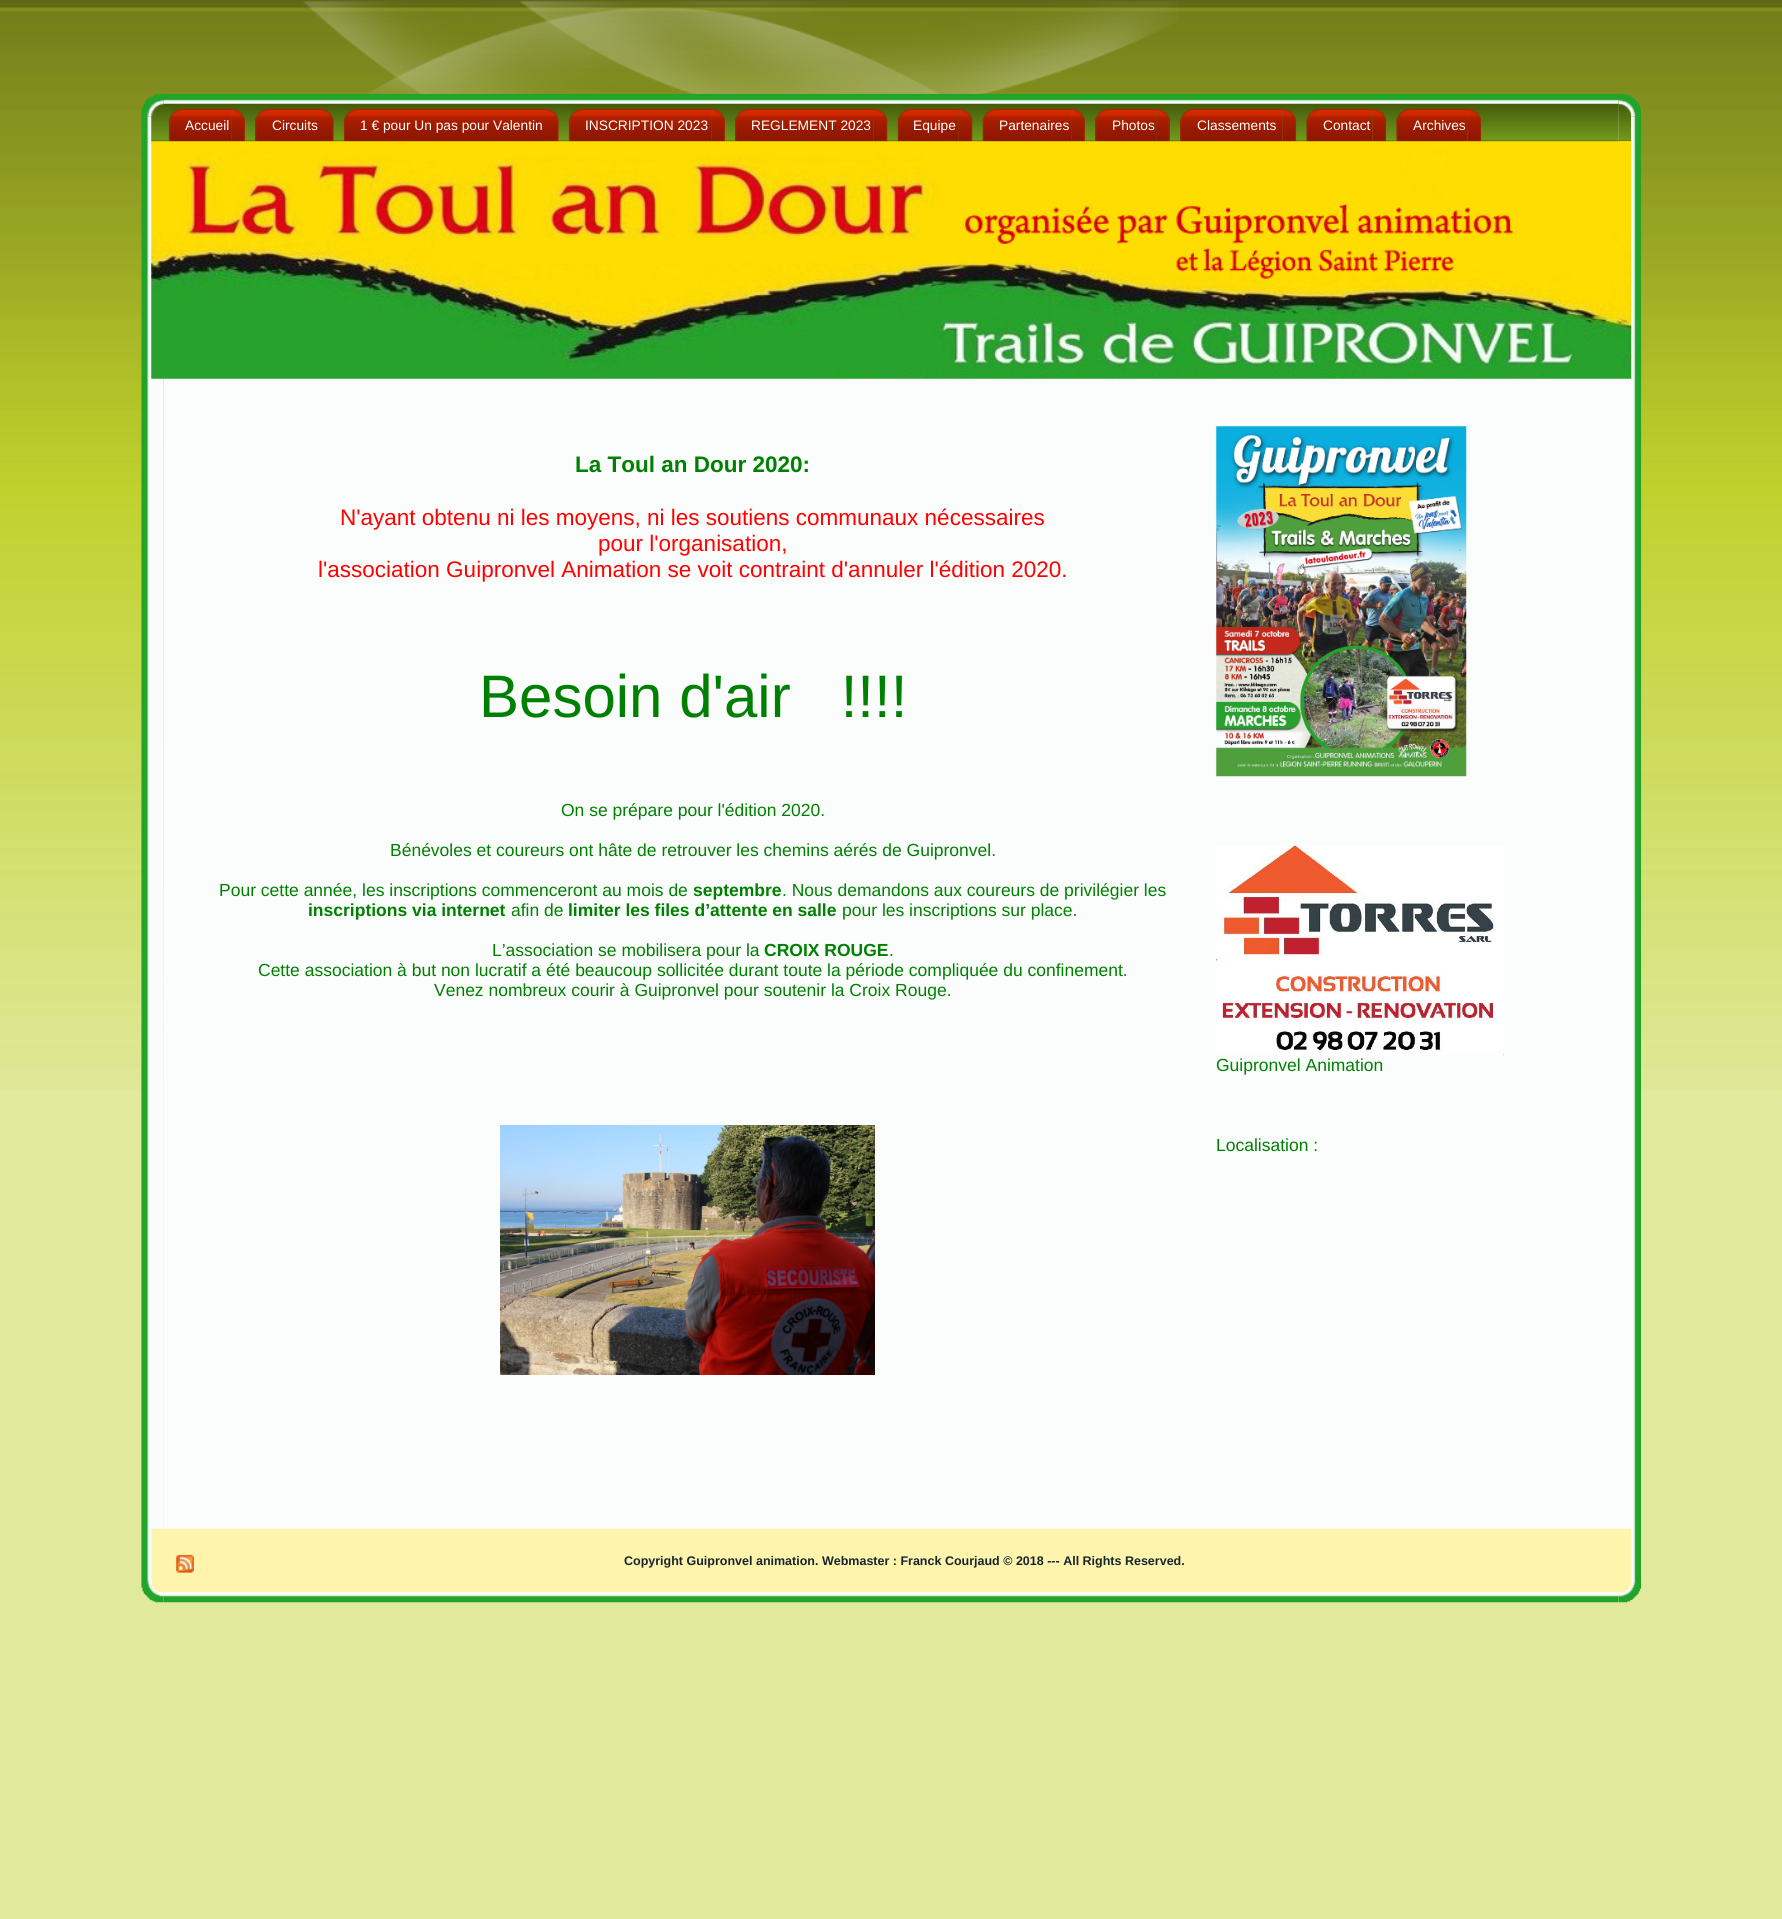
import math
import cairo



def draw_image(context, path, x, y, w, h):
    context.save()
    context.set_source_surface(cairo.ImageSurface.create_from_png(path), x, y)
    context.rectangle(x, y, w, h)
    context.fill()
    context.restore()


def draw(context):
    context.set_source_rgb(225 / 255, 233 / 255, 156 / 255)
    context.paint()
    draw_image(context, "images/1.png", 0, 0, 1782, 1090)
    draw_image(context, "images/2.png", 303, 1, 876, 93)
    draw_image(context, "images/3.png", 141, 93, 23, 24)
    draw_image(context, "images/5.png", 1618, 93, 24, 24)
    draw_image(context, "images/4.png", 163, 93, 1456, 23)
    draw_image(context, "images/6.png", 141, 116, 23, 1464)
    context.set_source_rgb(251 / 255, 253 / 255, 253 / 255)
    context.rectangle(164, 116, 1455, 1413)
    context.fill()
    draw_image(context, "images/7.png", 1619, 116, 23, 1464)
    draw_image(context, "images/26.png", 151, 140, 1481, 239)
    draw_image(context, "images/8.png", 151, 103, 1468, 39)
    draw_image(context, "images/9.png", 1618, 103, 14, 39)
    draw_image(context, "images/10.png", 168, 108, 64, 34)
    draw_image(context, "images/11.png", 231, 108, 14, 34)
    draw_image(context, "images/12.png", 255, 108, 65, 34)
    draw_image(context, "images/13.png", 320, 108, 14, 34)
    draw_image(context, "images/14.png", 343, 108, 202, 34)
    draw_image(context, "images/15.png", 545, 108, 14, 34)
    draw_image(context, "images/16.png", 568, 108, 144, 34)
    draw_image(context, "images/11.png", 711, 108, 14, 34)
    draw_image(context, "images/17.png", 735, 108, 139, 34)
    draw_image(context, "images/18.png", 873, 108, 15, 34)
    draw_image(context, "images/19.png", 897, 108, 62, 34)
    draw_image(context, "images/18.png", 958, 108, 15, 34)
    draw_image(context, "images/20.png", 982, 108, 90, 34)
    draw_image(context, "images/11.png", 1071, 108, 14, 34)
    draw_image(context, "images/21.png", 1095, 108, 62, 34)
    draw_image(context, "images/11.png", 1156, 108, 14, 34)
    draw_image(context, "images/22.png", 1180, 108, 103, 34)
    draw_image(context, "images/23.png", 1282, 108, 15, 34)
    draw_image(context, "images/24.png", 1306, 108, 67, 34)
    draw_image(context, "images/23.png", 1372, 108, 15, 34)
    draw_image(context, "images/25.png", 1396, 108, 72, 34)
    draw_image(context, "images/23.png", 1467, 108, 15, 34)
    draw_image(context, "images/27.png", 500, 1125, 375, 250)
    draw_image(context, "images/28.png", 1216, 426, 251, 351)
    draw_image(context, "images/29.png", 1216, 845, 288, 210)
    draw_image(context, "images/32.png", 141, 1580, 23, 23)
    draw_image(context, "images/34.png", 1618, 1580, 24, 23)
    draw_image(context, "images/33.png", 164, 1592, 1455, 11)
    draw_image(context, "images/30.png", 151, 1528, 1481, 65)
    draw_image(context, "images/31.png", 176, 1554, 18, 19)
    context.select_font_face("Liberation Sans")
    context.set_font_size(13.75)
    context.set_source_rgb(1, 1, 1)
    context.move_to(185, 130)
    context.show_text("Accueil")
    context.move_to(272, 130)
    context.show_text("Circuits")
    context.move_to(360, 130)
    context.show_text("1 € pour Un pas pour Valentin")
    context.move_to(585, 130)
    context.show_text("INSCRIPTION 2023")
    context.move_to(751, 130)
    context.show_text("REGLEMENT 2023")
    context.move_to(913, 130)
    context.show_text("Equipe")
    context.move_to(999, 130)
    context.show_text("Partenaires")
    context.move_to(1112, 130)
    context.show_text("Photos")
    context.move_to(1197, 130)
    context.show_text("Classements")
    context.move_to(1323, 130)
    context.show_text("Contact")
    context.move_to(1413, 130)
    context.show_text("Archives")
    context.select_font_face("Liberation Sans", cairo.FontSlant.NORMAL, cairo.FontWeight.BOLD)
    context.set_font_size(22.5)
    context.set_source_rgb(0, 128 / 255, 0)
    context.move_to(575, 472)
    context.show_text("La Toul an Dour 2020:")
    context.select_font_face("Liberation Sans")
    context.set_source_rgb(1, 0, 0)
    context.move_to(340, 525)
    context.show_text("N'ayant obtenu ni les moyens, ni les soutiens communaux nécessaires")
    context.move_to(598, 551)
    context.show_text("pour l'organisation,")
    context.move_to(318, 577)
    context.show_text("l'association Guipronvel Animation se voit contraint d'annuler l'édition 2020.")
    context.set_font_size(60)
    context.set_source_rgb(0, 128 / 255, 0)
    context.move_to(479, 717)
    context.show_text("Besoin d'air   !!!!")
    context.set_font_size(17.5)
    context.move_to(561, 816)
    context.show_text("On se prépare pour l'édition 2020.")
    context.move_to(390, 856)
    context.show_text("Bénévoles et coureurs ont hâte de retrouver les chemins aérés de Guipronvel.")
    context.move_to(219, 896)
    context.show_text("Pour cette année, les inscriptions commenceront au mois de")
    context.select_font_face("Liberation Sans", cairo.FontSlant.NORMAL, cairo.FontWeight.BOLD)
    context.move_to(693, 896)
    context.show_text("septembre")
    context.select_font_face("Liberation Sans")
    context.move_to(782, 896)
    context.show_text(". Nous demandons aux coureurs de privilégier les")
    context.select_font_face("Liberation Sans", cairo.FontSlant.NORMAL, cairo.FontWeight.BOLD)
    context.move_to(308, 916)
    context.show_text("inscriptions via internet")
    context.select_font_face("Liberation Sans")
    context.move_to(511, 916)
    context.show_text("afin de")
    context.select_font_face("Liberation Sans", cairo.FontSlant.NORMAL, cairo.FontWeight.BOLD)
    context.move_to(568, 916)
    context.show_text("limiter les files d’attente en salle")
    context.select_font_face("Liberation Sans")
    context.move_to(842, 916)
    context.show_text("pour les inscriptions sur place.")
    context.move_to(492, 956)
    context.show_text("L’association se mobilisera pour la")
    context.select_font_face("Liberation Sans", cairo.FontSlant.NORMAL, cairo.FontWeight.BOLD)
    context.move_to(764, 956)
    context.show_text("CROIX ROUGE")
    context.select_font_face("Liberation Sans")
    context.move_to(889, 956)
    context.show_text(".")
    context.move_to(258, 976)
    context.show_text("Cette association à but non lucratif a été beaucoup sollicitée durant toute la période compliquée du confinement.")
    context.move_to(434, 996)
    context.show_text("Venez nombreux courir à Guipronvel pour soutenir la Croix Rouge.")
    context.move_to(1216, 1071)
    context.show_text("Guipronvel Animation")
    context.move_to(1216, 1151)
    context.show_text("Localisation :")
    context.select_font_face("Liberation Sans", cairo.FontSlant.NORMAL, cairo.FontWeight.BOLD)
    context.set_font_size(12.5)
    context.set_source_rgb(22 / 255, 38 / 255, 49 / 255)
    context.move_to(624, 1565)
    context.show_text("Copyright Guipronvel animation. Webmaster : Franck Courjaud © 2018 --- All Rights Reserved.")


surface = cairo.ImageSurface(cairo.Format.RGB24, 1782, 1919)
context = cairo.Context(surface)
options = cairo.FontOptions()
options.set_hint_metrics(cairo.HintMetrics.OFF)
options.set_hint_style(cairo.HintStyle.NONE)
context.set_font_options(options)
context.set_miter_limit(4)
draw(context)
surface.write_to_png("out.png")
